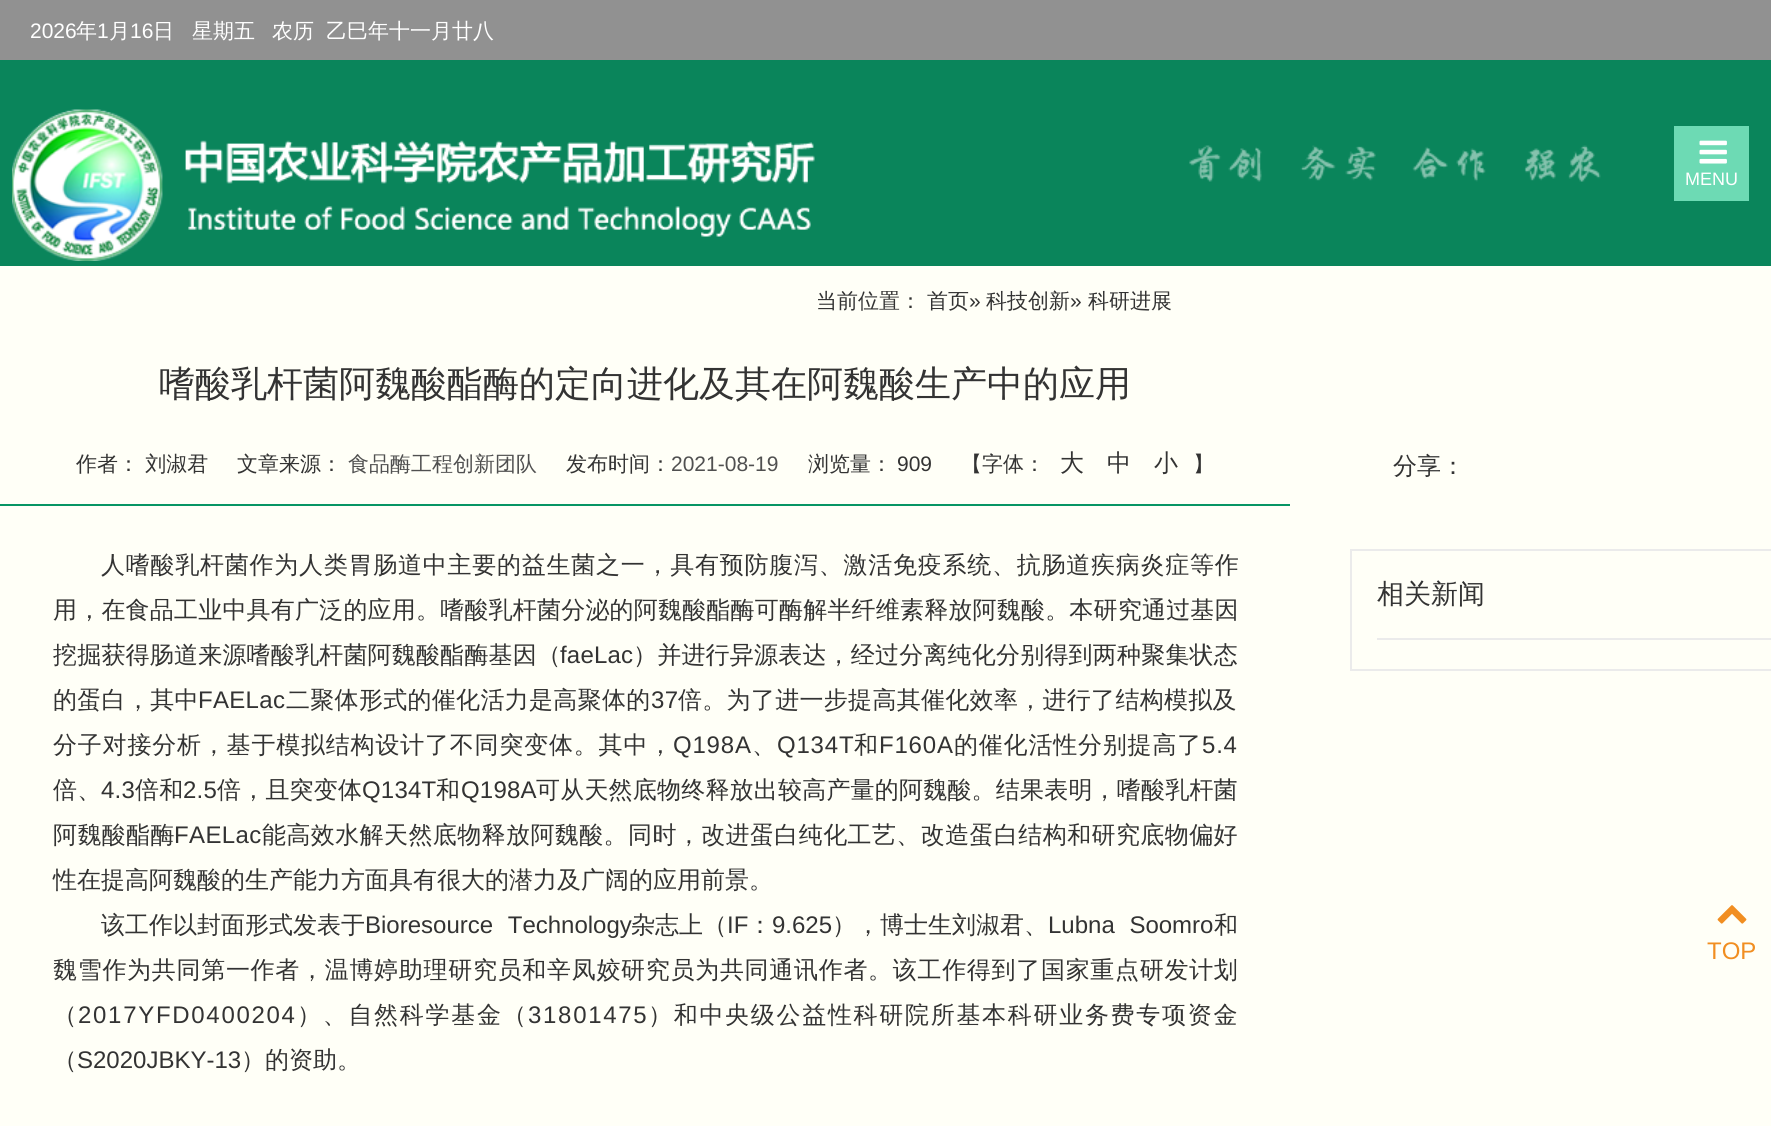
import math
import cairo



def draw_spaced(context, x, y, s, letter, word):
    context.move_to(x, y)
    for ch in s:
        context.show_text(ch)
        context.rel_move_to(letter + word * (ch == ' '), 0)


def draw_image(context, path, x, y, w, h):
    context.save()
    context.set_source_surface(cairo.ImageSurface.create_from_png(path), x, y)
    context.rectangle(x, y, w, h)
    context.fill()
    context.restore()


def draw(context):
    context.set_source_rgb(1, 1, 247 / 255)
    context.paint()
    context.set_source_rgb(10 / 255, 133 / 255, 91 / 255)
    context.rectangle(0, 60, 1771, 206)
    context.fill()
    context.set_source_rgb(145 / 255, 145 / 255, 145 / 255)
    context.rectangle(0, 0, 1771, 60)
    context.fill()
    draw_image(context, "images/1.png", 1189, 145, 412, 37)
    draw_image(context, "images/2.png", 12, 109, 803, 152)
    context.set_source_rgb(109 / 255, 218 / 255, 180 / 255)
    context.rectangle(1674, 126, 75, 75)
    context.fill()
    draw_image(context, "images/3.png", 1699, 140, 28, 24)
    context.set_source_rgb(6 / 255, 149 / 255, 100 / 255)
    context.rectangle(0, 504, 1290, 2)
    context.fill()
    context.rectangle(1351, 550, 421, 120)
    context.set_source_rgb(235 / 255, 235 / 255, 235 / 255)
    context.stroke()
    context.rectangle(1377, 638, 394, 2)
    context.fill()
    draw_image(context, "images/4.png", 1717, 905, 30, 19)
    context.select_font_face("Liberation Sans")
    context.set_font_size(21)
    context.set_source_rgb(1, 1, 1)
    context.move_to(30, 38)
    context.show_text("2026")
    context.select_font_face("WenQuanYi Zen Hei Medium")
    context.move_to(76, 38)
    context.show_text("年")
    context.select_font_face("Liberation Sans")
    context.move_to(97, 38)
    context.show_text("1")
    context.select_font_face("WenQuanYi Zen Hei Medium")
    context.move_to(109, 38)
    context.show_text("月")
    context.select_font_face("Liberation Sans")
    context.move_to(130, 38)
    context.show_text("16")
    context.select_font_face("WenQuanYi Zen Hei Medium")
    context.move_to(153, 38)
    context.show_text("日")
    context.move_to(192, 38)
    context.show_text("星期五")
    context.move_to(272, 38)
    context.show_text("农历")
    context.move_to(326, 38)
    context.show_text("乙巳年十一月廿八")
    context.select_font_face("Liberation Sans")
    context.set_font_size(18)
    context.move_to(1685, 185)
    context.show_text("MENU")
    context.select_font_face("WenQuanYi Zen Hei Medium")
    context.set_font_size(21)
    context.set_source_rgb(51 / 255, 51 / 255, 51 / 255)
    context.move_to(816, 308)
    context.show_text("当前位置：")
    context.move_to(927, 308)
    context.show_text("首页")
    context.select_font_face("Liberation Sans")
    context.move_to(969, 308)
    context.show_text("»")
    context.select_font_face("WenQuanYi Zen Hei Medium")
    context.move_to(986, 308)
    context.show_text("科技创新")
    context.select_font_face("Liberation Sans")
    context.move_to(1070, 308)
    context.show_text("»")
    context.select_font_face("WenQuanYi Zen Hei Medium")
    context.move_to(1088, 308)
    context.show_text("科研进展")
    context.set_font_size(36)
    context.move_to(159, 396)
    context.show_text("嗜酸乳杆菌阿魏酸酯酶的定向进化及其在阿魏酸生产中的应用")
    context.set_font_size(21)
    context.move_to(76, 471)
    context.show_text("作者： 刘淑君")
    context.move_to(237, 471)
    context.show_text("文章来源：")
    context.set_source_rgb(80 / 255, 80 / 255, 80 / 255)
    context.move_to(348, 471)
    context.show_text("食品酶工程创新团队")
    context.set_source_rgb(51 / 255, 51 / 255, 51 / 255)
    context.move_to(566, 471)
    context.show_text("发布时间：")
    context.select_font_face("Liberation Sans")
    context.set_source_rgb(80 / 255, 80 / 255, 80 / 255)
    context.move_to(671, 471)
    context.show_text("2021-08-19")
    context.select_font_face("WenQuanYi Zen Hei Medium")
    context.set_source_rgb(51 / 255, 51 / 255, 51 / 255)
    context.move_to(808, 471)
    context.show_text("浏览量：")
    context.select_font_face("Liberation Sans")
    context.move_to(897, 471)
    context.show_text("909")
    context.select_font_face("WenQuanYi Zen Hei Medium")
    context.move_to(961, 471)
    context.show_text("【字体：")
    context.set_font_size(24)
    context.move_to(1060, 471)
    context.show_text("大")
    context.move_to(1107, 471)
    context.show_text("中")
    context.move_to(1154, 471)
    context.show_text("小")
    context.set_font_size(21)
    context.move_to(1193, 471)
    context.show_text("】")
    context.set_font_size(24)
    draw_spaced(context, 101, 573, "人嗜酸乳杆菌作为人类胃肠道中主要的益生菌之一，具有预防腹泻、激活免疫系统、抗肠道疾病炎症等作", 0.75, 0)
    draw_spaced(context, 53, 618, "用，在食品工业中具有广泛的应用。嗜酸乳杆菌分泌的阿魏酸酯酶可酶解半纤维素释放阿魏酸。本研究通过基因", 0.2, 0)
    draw_spaced(context, 53, 663, "挖掘获得肠道来源嗜酸乳杆菌阿魏酸酯酶基因（", 0.2, 0)
    context.select_font_face("Liberation Sans")
    draw_spaced(context, 560, 663, "faeLac", 0.2, 0)
    context.select_font_face("WenQuanYi Zen Hei Medium")
    draw_spaced(context, 633, 663, "）并进行异源表达，经过分离纯化分别得到两种聚集状态", 0.2, 0)
    draw_spaced(context, 53, 708, "的蛋白，其中", 0.3, 0)
    context.select_font_face("Liberation Sans")
    draw_spaced(context, 198, 708, "FAELac", 0.3, 0)
    context.select_font_face("WenQuanYi Zen Hei Medium")
    draw_spaced(context, 286, 708, "二聚体形式的催化活力是高聚体的", 0.3, 0)
    context.select_font_face("Liberation Sans")
    draw_spaced(context, 651, 708, "37", 0.3, 0)
    context.select_font_face("WenQuanYi Zen Hei Medium")
    draw_spaced(context, 678, 708, "倍。为了进一步提高其催化效率，进行了结构模拟及", 0.3, 0)
    draw_spaced(context, 53, 753, "分子对接分析，基于模拟结构设计了不同突变体。其中，", 0.8, 0)
    context.select_font_face("Liberation Sans")
    draw_spaced(context, 673, 753, "Q198A", 0.8, 0)
    context.select_font_face("WenQuanYi Zen Hei Medium")
    draw_spaced(context, 752, 753, "、", 0.8, 0)
    context.select_font_face("Liberation Sans")
    draw_spaced(context, 777, 753, "Q134T", 0.8, 0)
    context.select_font_face("WenQuanYi Zen Hei Medium")
    draw_spaced(context, 854, 753, "和", 0.8, 0)
    context.select_font_face("Liberation Sans")
    draw_spaced(context, 879, 753, "F160A", 0.8, 0)
    context.select_font_face("WenQuanYi Zen Hei Medium")
    draw_spaced(context, 954, 753, "的催化活性分别提高了", 0.8, 0)
    context.select_font_face("Liberation Sans")
    draw_spaced(context, 1202, 753, "5.4", 0.8, 0)
    context.select_font_face("WenQuanYi Zen Hei Medium")
    draw_spaced(context, 53, 798, "倍、", 0.2, 0)
    context.select_font_face("Liberation Sans")
    draw_spaced(context, 101, 798, "4.3", 0.2, 0)
    context.select_font_face("WenQuanYi Zen Hei Medium")
    draw_spaced(context, 135, 798, "倍和", 0.2, 0)
    context.select_font_face("Liberation Sans")
    draw_spaced(context, 183, 798, "2.5", 0.2, 0)
    context.select_font_face("WenQuanYi Zen Hei Medium")
    draw_spaced(context, 217, 798, "倍，且突变体", 0.2, 0)
    context.select_font_face("Liberation Sans")
    draw_spaced(context, 362, 798, "Q134T", 0.2, 0)
    context.select_font_face("WenQuanYi Zen Hei Medium")
    draw_spaced(context, 436, 798, "和", 0.2, 0)
    context.select_font_face("Liberation Sans")
    draw_spaced(context, 461, 798, "Q198A", 0.2, 0)
    context.select_font_face("WenQuanYi Zen Hei Medium")
    draw_spaced(context, 536, 798, "可从天然底物终释放出较高产量的阿魏酸。结果表明，嗜酸乳杆菌", 0.2, 0)
    draw_spaced(context, 53, 843, "阿魏酸酯酶", 0.4, 0)
    context.select_font_face("Liberation Sans")
    draw_spaced(context, 174, 843, "FAELac", 0.4, 0)
    context.select_font_face("WenQuanYi Zen Hei Medium")
    draw_spaced(context, 262, 843, "能高效水解天然底物释放阿魏酸。同时，改进蛋白纯化工艺、改造蛋白结构和研究底物偏好", 0.4, 0)
    context.move_to(53, 888)
    context.show_text("性在提高阿魏酸的生产能力方面具有很大的潜力及广阔的应用前景。")
    context.move_to(101, 933)
    context.show_text("该工作以封面形式发表于")
    context.select_font_face("Liberation Sans")
    draw_spaced(context, 365, 933, "Bioresource Technology", 0, 8)
    context.select_font_face("WenQuanYi Zen Hei Medium")
    context.move_to(631, 933)
    context.show_text("杂志上（")
    context.select_font_face("Liberation Sans")
    context.move_to(727, 933)
    context.show_text("IF")
    context.select_font_face("WenQuanYi Zen Hei Medium")
    context.move_to(748, 933)
    context.show_text("：")
    context.select_font_face("Liberation Sans")
    context.move_to(772, 933)
    context.show_text("9.625")
    context.select_font_face("WenQuanYi Zen Hei Medium")
    context.move_to(832, 933)
    context.show_text("），博士生刘淑君、")
    context.select_font_face("Liberation Sans")
    draw_spaced(context, 1048, 933, "Lubna Soomro", 0, 8)
    context.select_font_face("WenQuanYi Zen Hei Medium")
    context.move_to(1214, 933)
    context.show_text("和")
    draw_spaced(context, 53, 978, "魏雪作为共同第一作者，温博婷助理研究员和辛凤姣研究员为共同通讯作者。该工作得到了国家重点研发计划", 0.7, 0)
    draw_spaced(context, 53, 1023, "（", 1.7, 0)
    context.select_font_face("Liberation Sans")
    draw_spaced(context, 78, 1023, "2017YFD0400204", 1.7, 0)
    context.select_font_face("WenQuanYi Zen Hei Medium")
    draw_spaced(context, 297, 1023, "）、自然科学基金（", 1.7, 0)
    context.select_font_face("Liberation Sans")
    draw_spaced(context, 528, 1023, "31801475", 1.7, 0)
    context.select_font_face("WenQuanYi Zen Hei Medium")
    draw_spaced(context, 648, 1023, "）和中央级公益性科研院所基本科研业务费专项资金", 1.7, 0)
    context.move_to(53, 1068)
    context.show_text("（")
    context.select_font_face("Liberation Sans")
    context.move_to(77, 1068)
    context.show_text("S2020JBKY-13")
    context.select_font_face("WenQuanYi Zen Hei Medium")
    context.move_to(241, 1068)
    context.show_text("）的资助。")
    context.move_to(1393, 474)
    context.show_text("分享：")
    context.set_font_size(27)
    context.move_to(1377, 603)
    context.show_text("相关新闻")
    context.select_font_face("Liberation Sans")
    context.set_font_size(24)
    context.set_source_rgb(241 / 255, 142 / 255, 33 / 255)
    context.move_to(1707, 959)
    context.show_text("TOP")


surface = cairo.ImageSurface(cairo.Format.RGB24, 1771, 1126)
context = cairo.Context(surface)
options = cairo.FontOptions()
options.set_hint_metrics(cairo.HintMetrics.OFF)
options.set_hint_style(cairo.HintStyle.NONE)
context.set_font_options(options)
context.set_miter_limit(4)
draw(context)
surface.write_to_png("out.png")
